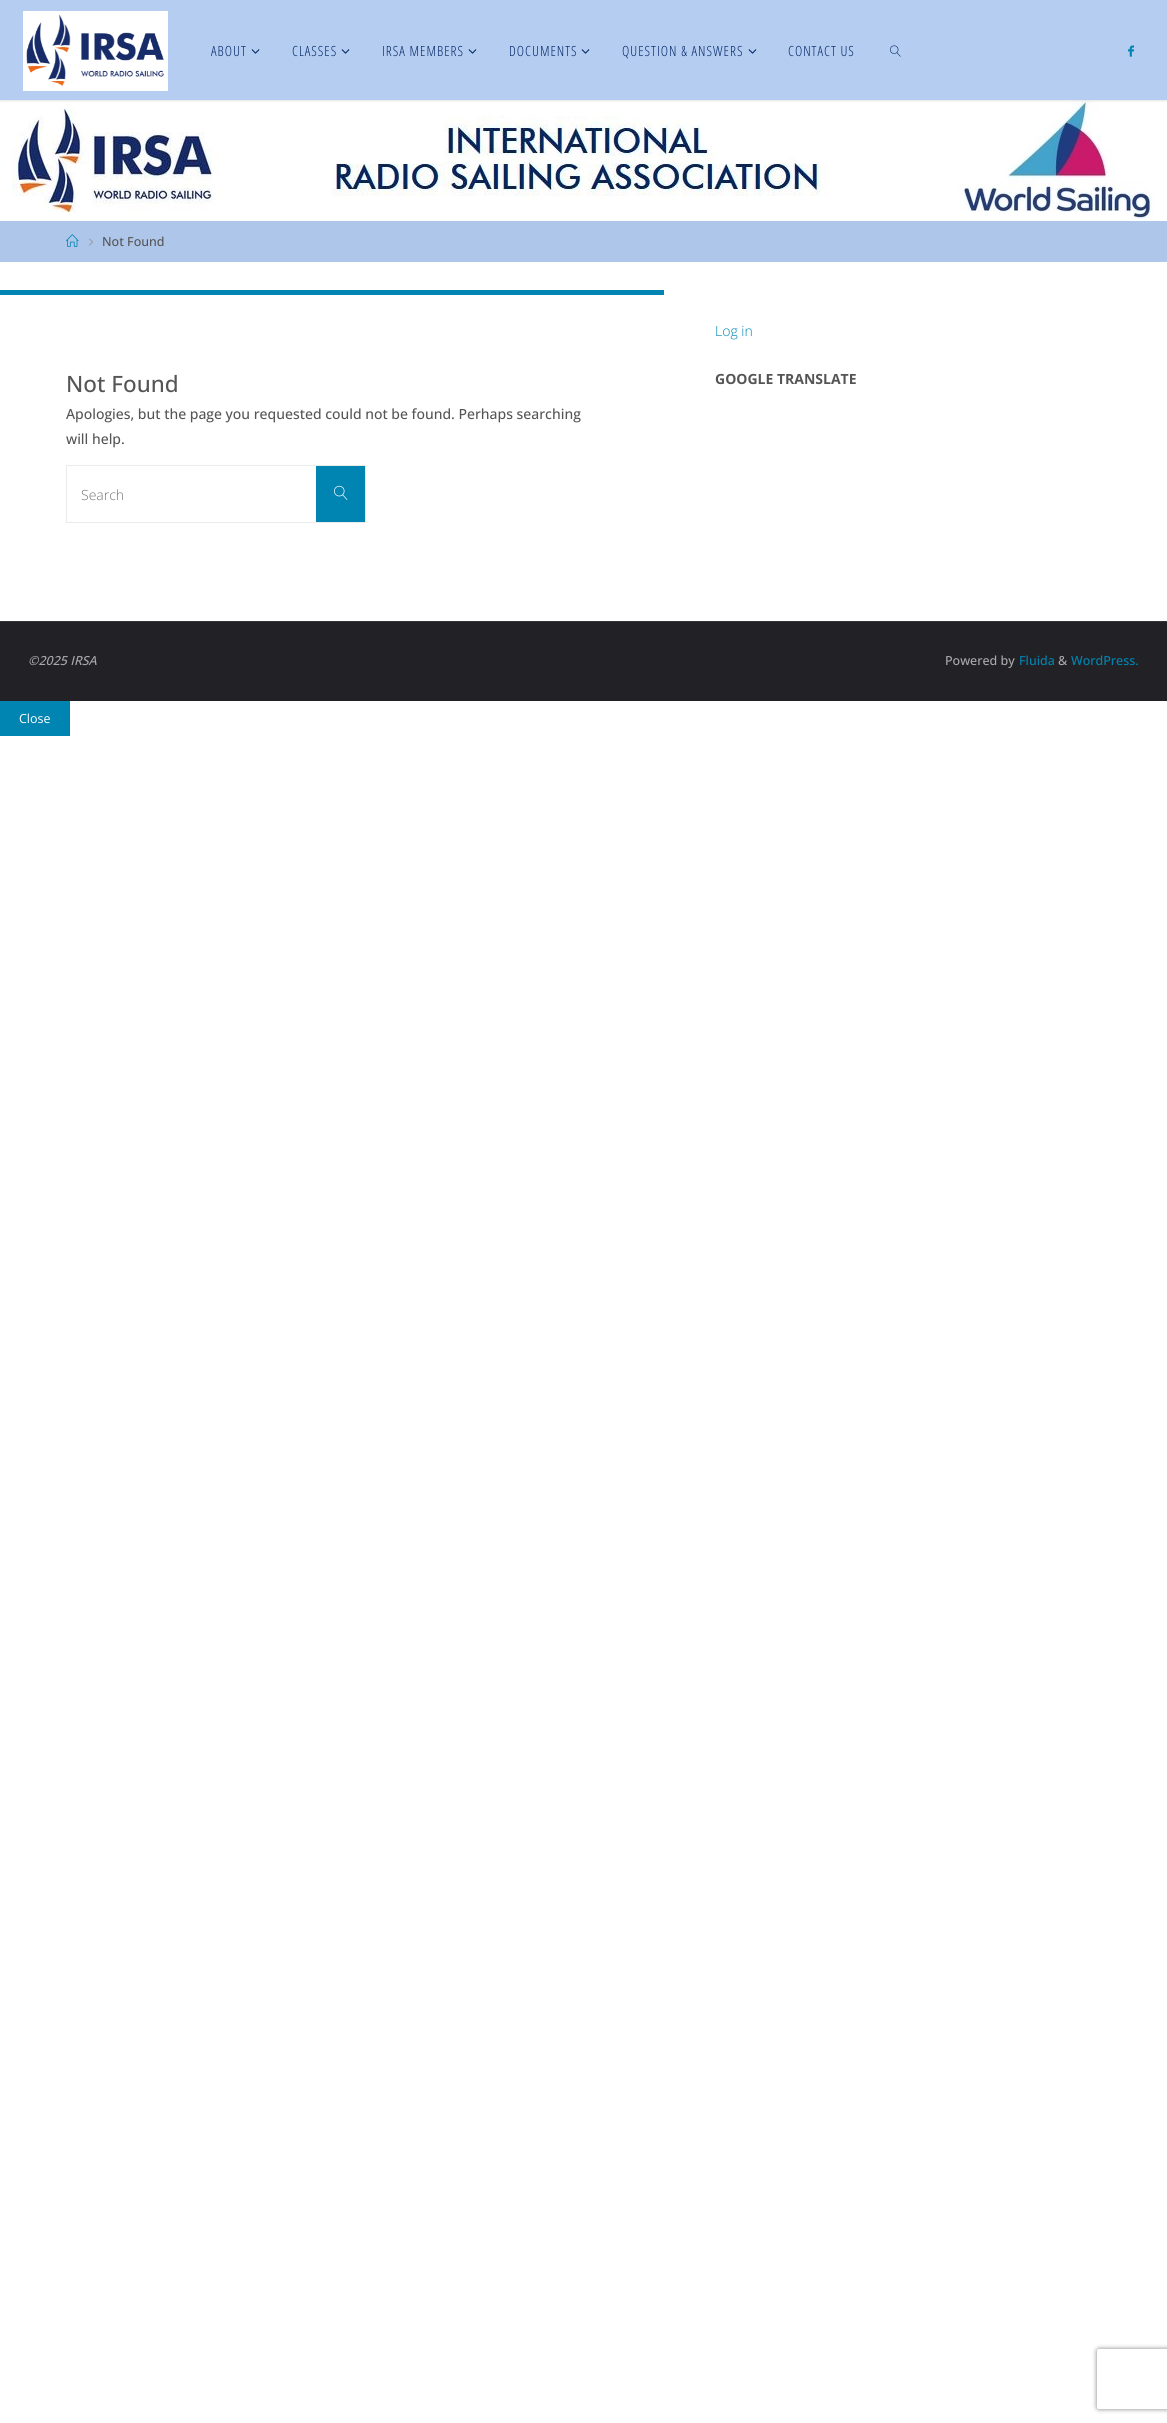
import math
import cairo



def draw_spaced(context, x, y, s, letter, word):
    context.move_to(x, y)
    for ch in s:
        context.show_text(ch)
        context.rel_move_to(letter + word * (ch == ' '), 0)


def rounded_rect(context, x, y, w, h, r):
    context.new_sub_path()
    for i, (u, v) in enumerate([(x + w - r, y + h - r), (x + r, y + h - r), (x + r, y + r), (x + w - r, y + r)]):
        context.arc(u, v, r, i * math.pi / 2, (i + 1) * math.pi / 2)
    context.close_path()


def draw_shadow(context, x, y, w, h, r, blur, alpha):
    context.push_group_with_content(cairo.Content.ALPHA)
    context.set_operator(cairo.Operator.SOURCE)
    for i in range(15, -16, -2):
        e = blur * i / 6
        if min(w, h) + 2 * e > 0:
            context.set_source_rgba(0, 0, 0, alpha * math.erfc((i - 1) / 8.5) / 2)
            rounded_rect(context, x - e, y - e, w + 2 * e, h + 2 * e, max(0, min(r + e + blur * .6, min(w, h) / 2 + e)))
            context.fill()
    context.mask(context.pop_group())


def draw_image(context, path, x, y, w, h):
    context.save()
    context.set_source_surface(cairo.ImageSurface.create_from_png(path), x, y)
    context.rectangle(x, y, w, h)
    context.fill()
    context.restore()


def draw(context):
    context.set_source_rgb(1, 1, 1)
    context.paint()
    draw_image(context, "images/5.png", 12, 100, 1142, 120)
    context.set_source_rgb(0, 0, 0)
    draw_shadow(context, 0, 0, 1167, 100, 0, 1.5, 0.2)
    context.set_source_rgb(182 / 255, 205 / 255, 242 / 255)
    context.rectangle(0, 0, 1167, 100)
    context.fill()
    draw_image(context, "images/1.png", 23, 11, 145, 80)
    draw_image(context, "images/2.png", 251, 49, 9, 5)
    draw_image(context, "images/2.png", 341, 49, 9, 5)
    draw_image(context, "images/2.png", 468, 49, 9, 5)
    draw_image(context, "images/2.png", 581, 49, 9, 5)
    draw_image(context, "images/2.png", 748, 49, 9, 5)
    draw_image(context, "images/3.png", 890, 45, 11, 12)
    draw_image(context, "images/4.png", 1128, 45, 7, 12)
    context.set_source_rgb(175 / 255, 198 / 255, 235 / 255)
    context.rectangle(0, 221, 1167, 41)
    context.fill()
    draw_image(context, "images/6.png", 66, 234, 13, 13)
    draw_image(context, "images/7.png", 89, 238, 4, 8)
    context.set_source_rgb(0, 133 / 255, 178 / 255)
    context.rectangle(0, 290, 664, 5)
    context.fill()
    context.rectangle(66.5, 465.5, 299, 57)
    context.set_source_rgb(235 / 255, 235 / 255, 235 / 255)
    context.set_line_width(1)
    context.stroke()
    context.set_source_rgb(0, 133 / 255, 178 / 255)
    context.rectangle(316, 466, 49, 56)
    context.fill()
    draw_image(context, "images/8.png", 334, 485, 14, 15)
    context.set_source_rgb(34 / 255, 34 / 255, 38 / 255)
    context.rectangle(0, 622, 1167, 79)
    context.fill()
    context.set_source_rgb(54 / 255, 54 / 255, 58 / 255)
    context.rectangle(0, 621, 1167, 1)
    context.fill()
    context.set_source_rgb(0, 133 / 255, 178 / 255)
    context.rectangle(0, 701, 70, 35)
    context.fill()
    context.save()
    context.set_fill_rule(cairo.FillRule.EVEN_ODD)
    context.new_path()
    context.move_to(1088, 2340)
    context.line_to(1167, 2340)
    context.line_to(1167, 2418)
    context.line_to(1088, 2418)
    context.close_path()
    context.move_to(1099, 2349)
    context.line_to(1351, 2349)
    context.curve_to(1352, 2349, 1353, 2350, 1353, 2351)
    context.line_to(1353, 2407)
    context.curve_to(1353, 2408, 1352, 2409, 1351, 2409)
    context.line_to(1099, 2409)
    context.curve_to(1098, 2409, 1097, 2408, 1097, 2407)
    context.line_to(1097, 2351)
    context.curve_to(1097, 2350, 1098, 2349, 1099, 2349)
    context.close_path()
    context.clip()
    context.set_source_rgb(128 / 255, 128 / 255, 128 / 255)
    draw_shadow(context, 1097, 2349, 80, 60, 2, 2.5, 1)
    context.restore()
    context.select_font_face("Open Sans Condensed Light")
    context.set_font_size(14)
    context.set_source_rgb(0, 38 / 255, 100 / 255)
    draw_spaced(context, 211, 56, "ABOUT", 1, 0)
    draw_spaced(context, 292, 56, "CLASSES", 1, 0)
    draw_spaced(context, 382, 56, "IRSA MEMBERS", 1, 0)
    draw_spaced(context, 509, 56, "DOCUMENTS", 1, 0)
    draw_spaced(context, 622, 56, "QUESTION & ANSWERS", 1, 0)
    draw_spaced(context, 788, 56, "CONTACT US", 1, 0)
    context.select_font_face("Open Sans Medium")
    context.set_font_size(12.5)
    context.set_source_rgb(85 / 255, 85 / 255, 85 / 255)
    context.move_to(102, 246)
    context.show_text("Not Found")
    context.select_font_face("Open Sans Light")
    context.set_font_size(14)
    context.set_source_rgb(0, 133 / 255, 178 / 255)
    context.move_to(715, 336)
    context.show_text("Log in")
    context.select_font_face("Open Sans", cairo.FontSlant.NORMAL, cairo.FontWeight.BOLD)
    context.set_source_rgb(85 / 255, 85 / 255, 85 / 255)
    context.move_to(715, 384)
    context.show_text("GOOGLE TRANSLATE")
    context.select_font_face("Open Sans Medium")
    context.set_font_size(22.5)
    context.move_to(66, 392)
    context.show_text("Not Found")
    context.set_font_size(14)
    context.move_to(66, 419)
    context.show_text("Apologies, but the page you requested could not be found. Perhaps searching")
    context.move_to(66, 444)
    context.show_text("will help.")
    context.select_font_face("Open Sans Light")
    context.set_source_rgb(117 / 255, 117 / 255, 117 / 255)
    context.move_to(81, 500)
    context.show_text("Search")
    context.select_font_face("Open Sans Medium", cairo.FontSlant.ITALIC)
    context.set_font_size(12.5)
    context.set_source_rgb(170 / 255, 170 / 255, 170 / 255)
    context.move_to(28, 665)
    context.show_text("©2025 IRSA")
    context.select_font_face("Open Sans Medium")
    context.move_to(945, 665)
    context.show_text("Powered by")
    context.set_source_rgb(0, 133 / 255, 178 / 255)
    context.move_to(1019, 665)
    context.show_text("Fluida")
    context.set_source_rgb(170 / 255, 170 / 255, 170 / 255)
    context.move_to(1058, 665)
    context.show_text("&")
    context.set_source_rgb(0, 133 / 255, 178 / 255)
    context.move_to(1071, 665)
    context.show_text("WordPress.")
    context.select_font_face("Open Sans")
    context.set_source_rgb(1, 1, 1)
    context.move_to(19, 723)
    context.show_text("Close")


surface = cairo.ImageSurface(cairo.Format.RGB24, 1167, 2423)
context = cairo.Context(surface)
options = cairo.FontOptions()
options.set_hint_metrics(cairo.HintMetrics.OFF)
options.set_hint_style(cairo.HintStyle.NONE)
context.set_font_options(options)
context.set_miter_limit(4)
draw(context)
surface.write_to_png("out.png")
